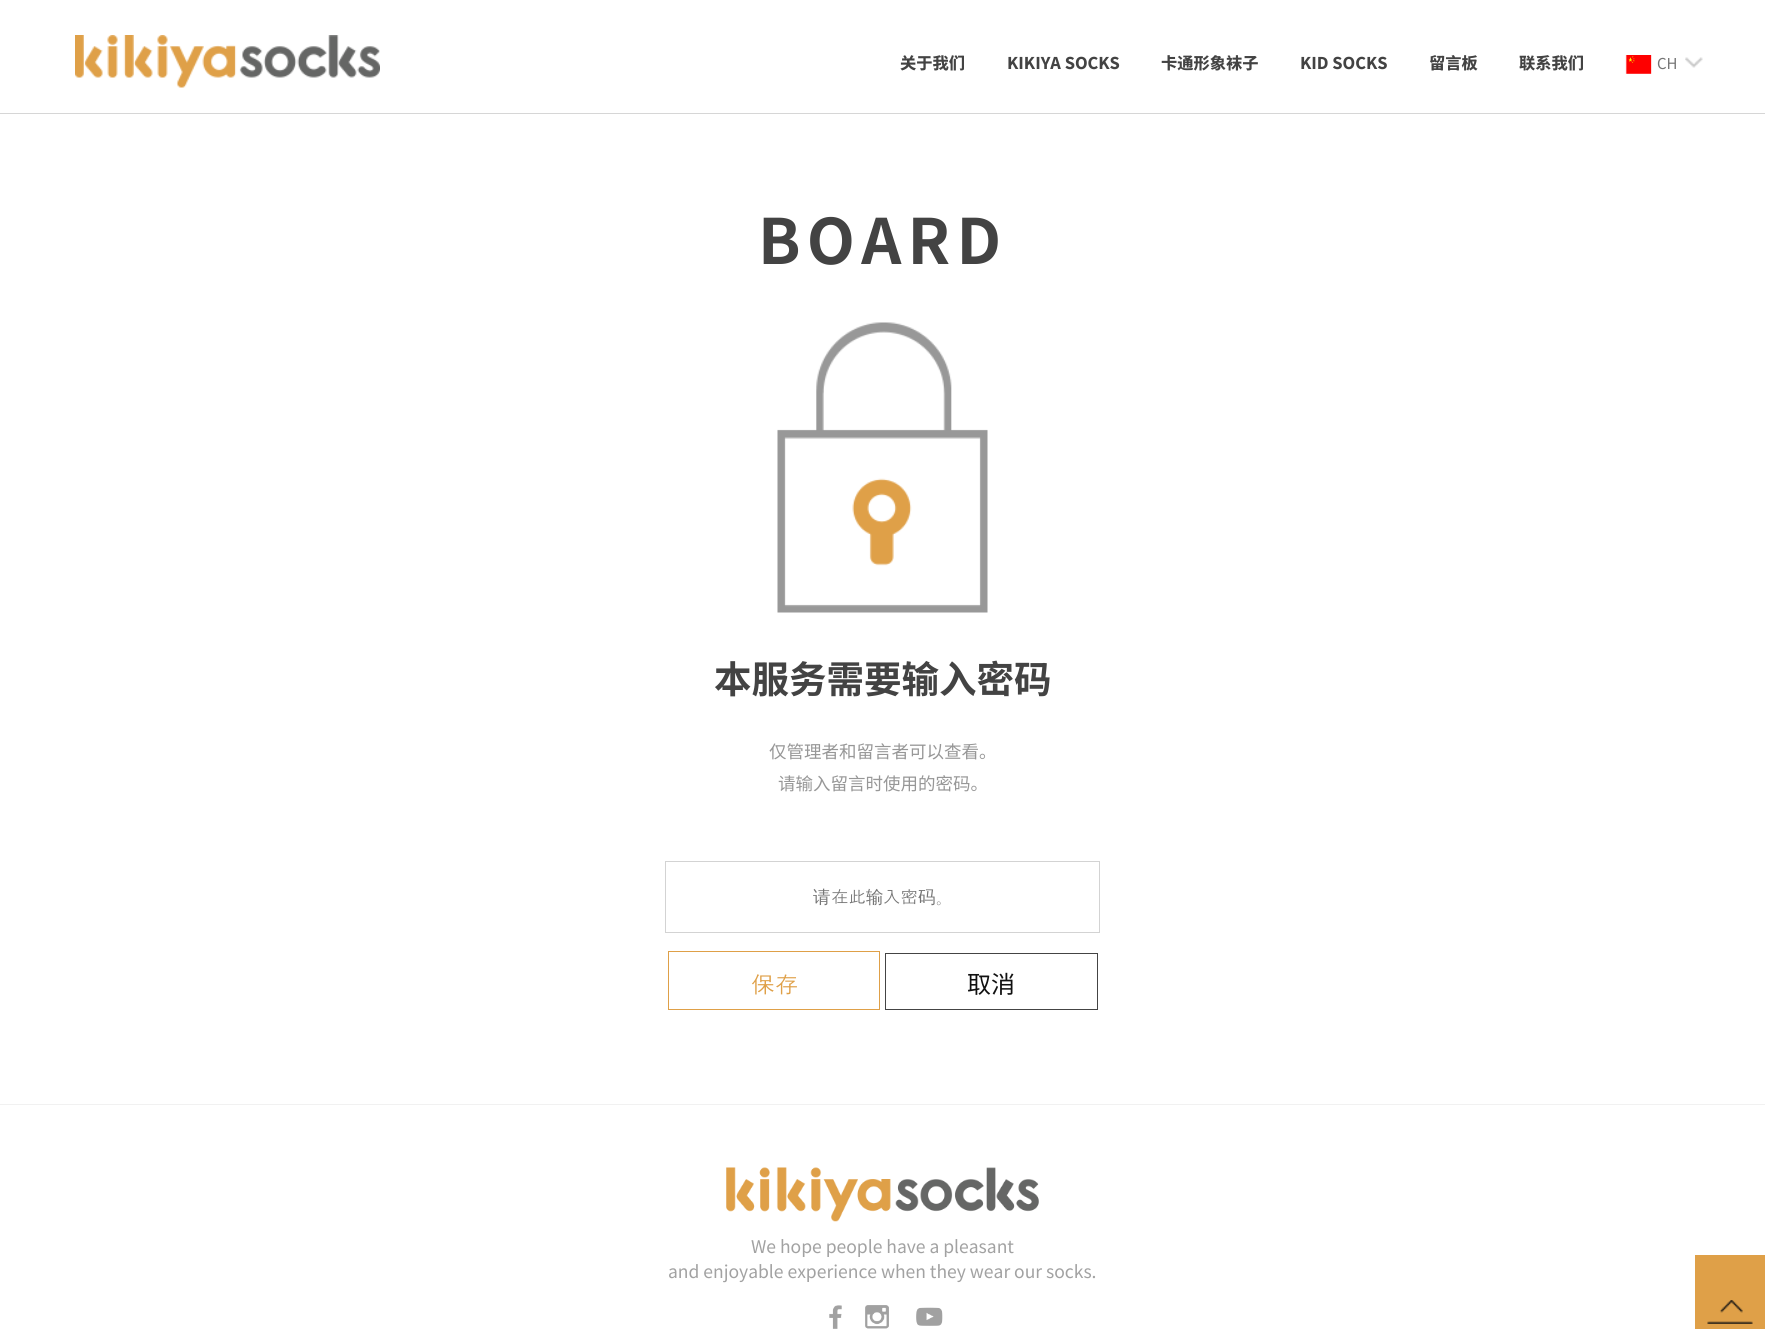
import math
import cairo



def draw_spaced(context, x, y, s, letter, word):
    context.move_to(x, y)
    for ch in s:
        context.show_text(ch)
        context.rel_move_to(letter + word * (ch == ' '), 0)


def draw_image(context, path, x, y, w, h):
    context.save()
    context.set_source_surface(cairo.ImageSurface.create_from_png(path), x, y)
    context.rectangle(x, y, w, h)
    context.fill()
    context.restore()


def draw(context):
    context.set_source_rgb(1, 1, 1)
    context.paint()
    context.set_source_rgb(214 / 255, 214 / 255, 214 / 255)
    context.rectangle(0, 113, 1765, 1)
    context.fill()
    draw_image(context, "images/1.png", 75, 35, 305, 53)
    draw_image(context, "images/2.png", 1685, 57, 18, 11)
    draw_image(context, "images/3.png", 1625, 55, 27, 19)
    draw_image(context, "images/4.png", 777, 322, 211, 291)
    context.rectangle(665.5, 861.5, 434, 71)
    context.set_source_rgb(211 / 255, 211 / 255, 211 / 255)
    context.set_line_width(1)
    context.stroke()
    context.rectangle(668.5, 951.5, 211, 58)
    context.set_source_rgb(223 / 255, 160 / 255, 72 / 255)
    context.stroke()
    context.rectangle(885.5, 953.5, 212, 56)
    context.set_source_rgb(68 / 255, 68 / 255, 68 / 255)
    context.stroke()
    context.set_source_rgb(241 / 255, 241 / 255, 241 / 255)
    context.rectangle(0, 1104, 1765, 1)
    context.fill()
    draw_image(context, "images/5.png", 726, 1167, 313, 55)
    context.set_source_rgb(223 / 255, 160 / 255, 72 / 255)
    context.rectangle(1695, 1255, 70, 74)
    context.fill()
    draw_image(context, "images/6.png", 1707, 1300, 46, 24)
    draw_image(context, "images/7.png", 829, 1305, 13, 24)
    draw_image(context, "images/8.png", 865, 1305, 24, 24)
    draw_image(context, "images/9.png", 916, 1307, 27, 19)
    context.select_font_face("Noto Sans SC ExtraBold")
    context.set_font_size(16.25)
    context.set_source_rgb(67 / 255, 67 / 255, 67 / 255)
    context.move_to(900, 69)
    context.show_text("关于我们")
    context.move_to(1007, 69)
    context.show_text("KIKIYA SOCKS")
    context.move_to(1161, 69)
    context.show_text("卡通形象袜子")
    context.move_to(1300, 69)
    context.show_text("KID SOCKS")
    context.move_to(1429, 69)
    context.show_text("留言板")
    context.move_to(1519, 69)
    context.show_text("联系我们")
    context.select_font_face("Noto Sans SC")
    context.set_font_size(15)
    context.set_source_rgb(117 / 255, 117 / 255, 117 / 255)
    context.move_to(1657, 69)
    context.show_text("CH")
    context.select_font_face("Noto Sans SC", cairo.FontSlant.NORMAL, cairo.FontWeight.BOLD)
    context.set_font_size(62.5)
    context.set_source_rgb(67 / 255, 67 / 255, 67 / 255)
    draw_spaced(context, 758, 264, "BOARD", 6.25, 0)
    context.set_font_size(37.5)
    context.move_to(714, 693)
    context.show_text("本服务需要输入密码")
    context.select_font_face("Noto Sans SC")
    context.set_font_size(17.5)
    context.set_source_rgb(151 / 255, 151 / 255, 151 / 255)
    context.move_to(769, 758)
    context.show_text("仅管理者和留言者可以查看。")
    context.move_to(778, 790)
    context.show_text("请输入留言时使用的密码。")
    context.select_font_face("WenQuanYi Zen Hei Medium")
    context.set_source_rgb(117 / 255, 117 / 255, 117 / 255)
    context.move_to(813, 903)
    context.show_text("请")
    context.select_font_face("Dotum")
    context.move_to(831, 903)
    context.show_text("在此")
    context.select_font_face("WenQuanYi Zen Hei Medium")
    context.move_to(866, 903)
    context.show_text("输")
    context.select_font_face("Dotum")
    context.move_to(883, 903)
    context.show_text("入密")
    context.select_font_face("WenQuanYi Zen Hei Medium")
    context.move_to(918, 903)
    context.show_text("码")
    context.select_font_face("NanumGothic")
    context.move_to(936, 903)
    context.show_text("。")
    context.select_font_face("Dotum")
    context.set_font_size(24)
    context.set_source_rgb(223 / 255, 160 / 255, 72 / 255)
    context.move_to(751, 993)
    context.show_text("保存")
    context.select_font_face("Noto Sans SC")
    context.set_source_rgb(17 / 255, 17 / 255, 17 / 255)
    context.move_to(967, 993)
    context.show_text("取消")
    context.set_font_size(17.5)
    context.set_source_rgb(162 / 255, 162 / 255, 162 / 255)
    context.move_to(751, 1253)
    context.show_text("We hope people have a pleasant")
    context.move_to(668, 1278)
    context.show_text("and enjoyable experience when they wear our socks.")


surface = cairo.ImageSurface(cairo.Format.RGB24, 1765, 1329)
context = cairo.Context(surface)
options = cairo.FontOptions()
options.set_hint_metrics(cairo.HintMetrics.OFF)
options.set_hint_style(cairo.HintStyle.NONE)
context.set_font_options(options)
context.set_miter_limit(4)
draw(context)
surface.write_to_png("out.png")
